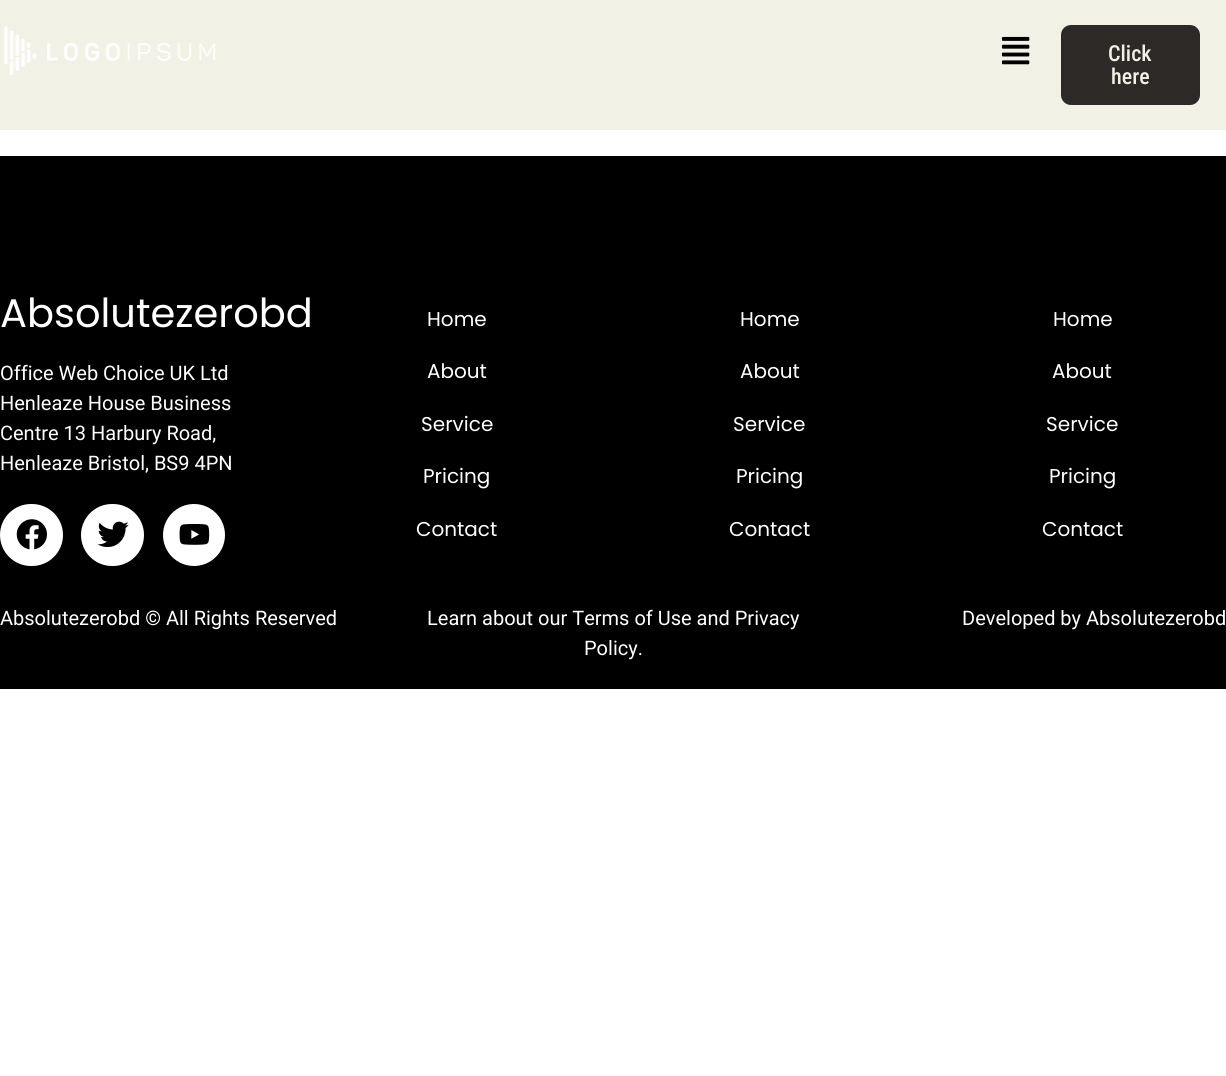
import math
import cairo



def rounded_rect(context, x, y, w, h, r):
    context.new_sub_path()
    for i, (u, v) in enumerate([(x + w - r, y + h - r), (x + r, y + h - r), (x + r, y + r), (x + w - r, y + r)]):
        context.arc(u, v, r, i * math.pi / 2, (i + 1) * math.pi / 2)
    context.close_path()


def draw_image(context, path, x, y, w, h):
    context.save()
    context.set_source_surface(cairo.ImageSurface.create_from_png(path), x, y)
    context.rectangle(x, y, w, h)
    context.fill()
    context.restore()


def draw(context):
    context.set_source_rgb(1, 1, 1)
    context.paint()
    context.set_source_rgb(241 / 255, 241 / 255, 229 / 255)
    context.rectangle(0, 0, 1226, 130)
    context.fill()
    draw_image(context, "images/1.png", 4, 26, 212, 49)
    draw_image(context, "images/2.png", 1001, 36, 29, 29)
    context.set_source_rgb(44 / 255, 41 / 255, 39 / 255)
    rounded_rect(context, 1061, 25, 139, 80, 10)
    context.fill()
    context.set_source_rgb(0, 0, 0)
    context.rectangle(0, 156, 1226, 533)
    context.fill()
    context.set_source_rgb(1, 1, 1)
    rounded_rect(context, 0, 504, 63, 62, 31)
    context.fill()
    draw_image(context, "images/3.png", 16, 519, 31, 31)
    rounded_rect(context, 81, 504, 63, 62, 31)
    context.fill()
    draw_image(context, "images/4.png", 98, 521, 31, 27)
    context.arc(194, 535, 31, 0, 2 * math.pi)
    context.fill()
    draw_image(context, "images/5.png", 179, 523, 31, 22)
    context.select_font_face("Roboto Condensed Medium")
    context.set_font_size(22)
    context.set_source_rgb(241 / 255, 241 / 255, 229 / 255)
    context.move_to(1108, 61)
    context.show_text("Click")
    context.move_to(1111, 84)
    context.show_text("here")
    context.select_font_face("Poppins")
    context.set_font_size(40)
    context.set_source_rgb(1, 1, 1)
    context.move_to(0, 327)
    context.show_text("Absolutezerobd")
    context.select_font_face("Roboto")
    context.set_font_size(20)
    context.move_to(0, 380)
    context.show_text("Office Web Choice UK Ltd")
    context.move_to(0, 410)
    context.show_text("Henleaze House Business")
    context.move_to(0, 440)
    context.show_text("Centre 13 Harbury Road,")
    context.move_to(0, 470)
    context.show_text("Henleaze Bristol, BS9 4PN")
    context.select_font_face("Poppins")
    context.move_to(427, 326)
    context.show_text("Home")
    context.move_to(427, 378)
    context.show_text("About")
    context.move_to(421, 431)
    context.show_text("Service")
    context.move_to(423, 483)
    context.show_text("Pricing")
    context.move_to(416, 536)
    context.show_text("Contact")
    context.move_to(740, 326)
    context.show_text("Home")
    context.move_to(740, 378)
    context.show_text("About")
    context.move_to(733, 431)
    context.show_text("Service")
    context.move_to(736, 483)
    context.show_text("Pricing")
    context.move_to(729, 536)
    context.show_text("Contact")
    context.move_to(1053, 326)
    context.show_text("Home")
    context.move_to(1052, 378)
    context.show_text("About")
    context.move_to(1046, 431)
    context.show_text("Service")
    context.move_to(1049, 483)
    context.show_text("Pricing")
    context.move_to(1042, 536)
    context.show_text("Contact")
    context.select_font_face("Roboto")
    context.move_to(0, 625)
    context.show_text("Absolutezerobd © All Rights Reserved")
    context.move_to(427, 625)
    context.show_text("Learn about our Terms of Use and Privacy")
    context.move_to(584, 655)
    context.show_text("Policy.")
    context.move_to(962, 625)
    context.show_text("Developed by Absolutezerobd")


surface = cairo.ImageSurface(cairo.Format.RGB24, 1226, 1076)
context = cairo.Context(surface)
options = cairo.FontOptions()
options.set_hint_metrics(cairo.HintMetrics.OFF)
options.set_hint_style(cairo.HintStyle.NONE)
context.set_font_options(options)
context.set_miter_limit(4)
draw(context)
surface.write_to_png("out.png")
